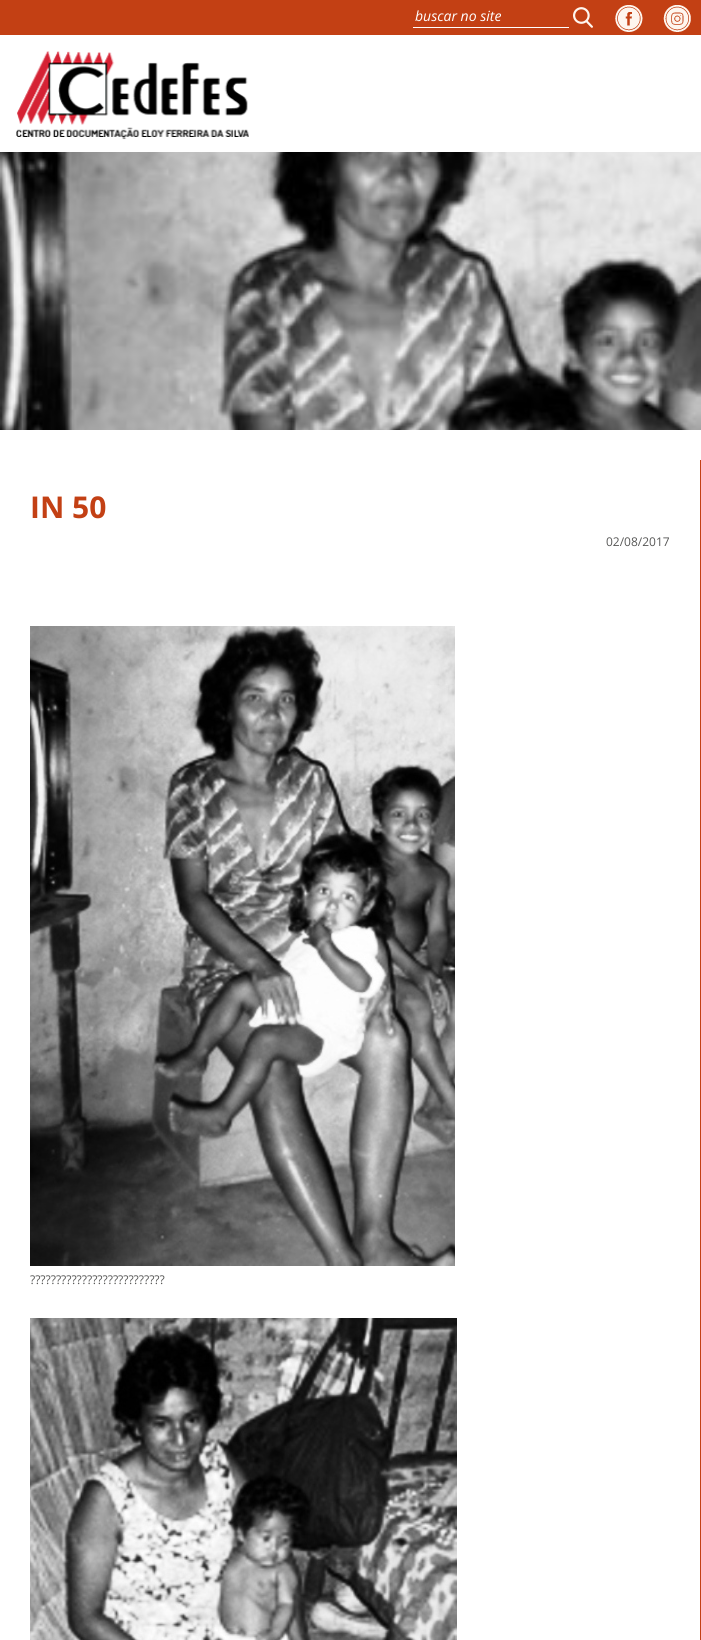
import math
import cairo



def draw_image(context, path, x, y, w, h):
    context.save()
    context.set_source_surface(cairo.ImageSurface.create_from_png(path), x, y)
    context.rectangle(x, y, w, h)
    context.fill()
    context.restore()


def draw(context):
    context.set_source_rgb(1, 1, 1)
    context.paint()
    context.set_source_rgb(195 / 255, 64 / 255, 20 / 255)
    context.rectangle(0, 0, 701, 35)
    context.fill()
    context.set_source_rgb(1, 1, 1)
    context.rectangle(413, 27, 156, 1)
    context.fill()
    draw_image(context, "images/1.png", 573, 7, 20, 21)
    draw_image(context, "images/2.png", 615, 5, 28, 27)
    draw_image(context, "images/3.png", 663, 5, 28, 27)
    draw_image(context, "images/4.png", 16, 51, 233, 89)
    draw_image(context, "images/5.png", 0, 152, 701, 278)
    context.set_source_rgb(195 / 255, 64 / 255, 20 / 255)
    context.rectangle(700, 460, 1, 1180)
    context.fill()
    draw_image(context, "images/6.png", 30, 626, 425, 640)
    draw_image(context, "images/7.png", 30, 1318, 427, 322)
    context.select_font_face("Open Sans", cairo.FontSlant.ITALIC)
    context.set_font_size(14)
    context.set_source_rgb(1, 1, 1)
    context.move_to(415, 21)
    context.show_text("buscar no site")
    context.select_font_face("Open Sans", cairo.FontSlant.NORMAL, cairo.FontWeight.BOLD)
    context.set_font_size(30)
    context.set_source_rgb(195 / 255, 64 / 255, 20 / 255)
    context.move_to(30, 518)
    context.show_text("IN 50")
    context.select_font_face("Open Sans")
    context.set_font_size(12)
    context.set_source_rgb(87 / 255, 87 / 255, 86 / 255)
    context.move_to(606, 546)
    context.show_text("02/08/2017")
    context.move_to(30, 1284)
    context.show_text("??????????????????????????")


surface = cairo.ImageSurface(cairo.Format.RGB24, 701, 1640)
context = cairo.Context(surface)
options = cairo.FontOptions()
options.set_hint_metrics(cairo.HintMetrics.OFF)
options.set_hint_style(cairo.HintStyle.NONE)
context.set_font_options(options)
context.set_miter_limit(4)
draw(context)
surface.write_to_png("out.png")
